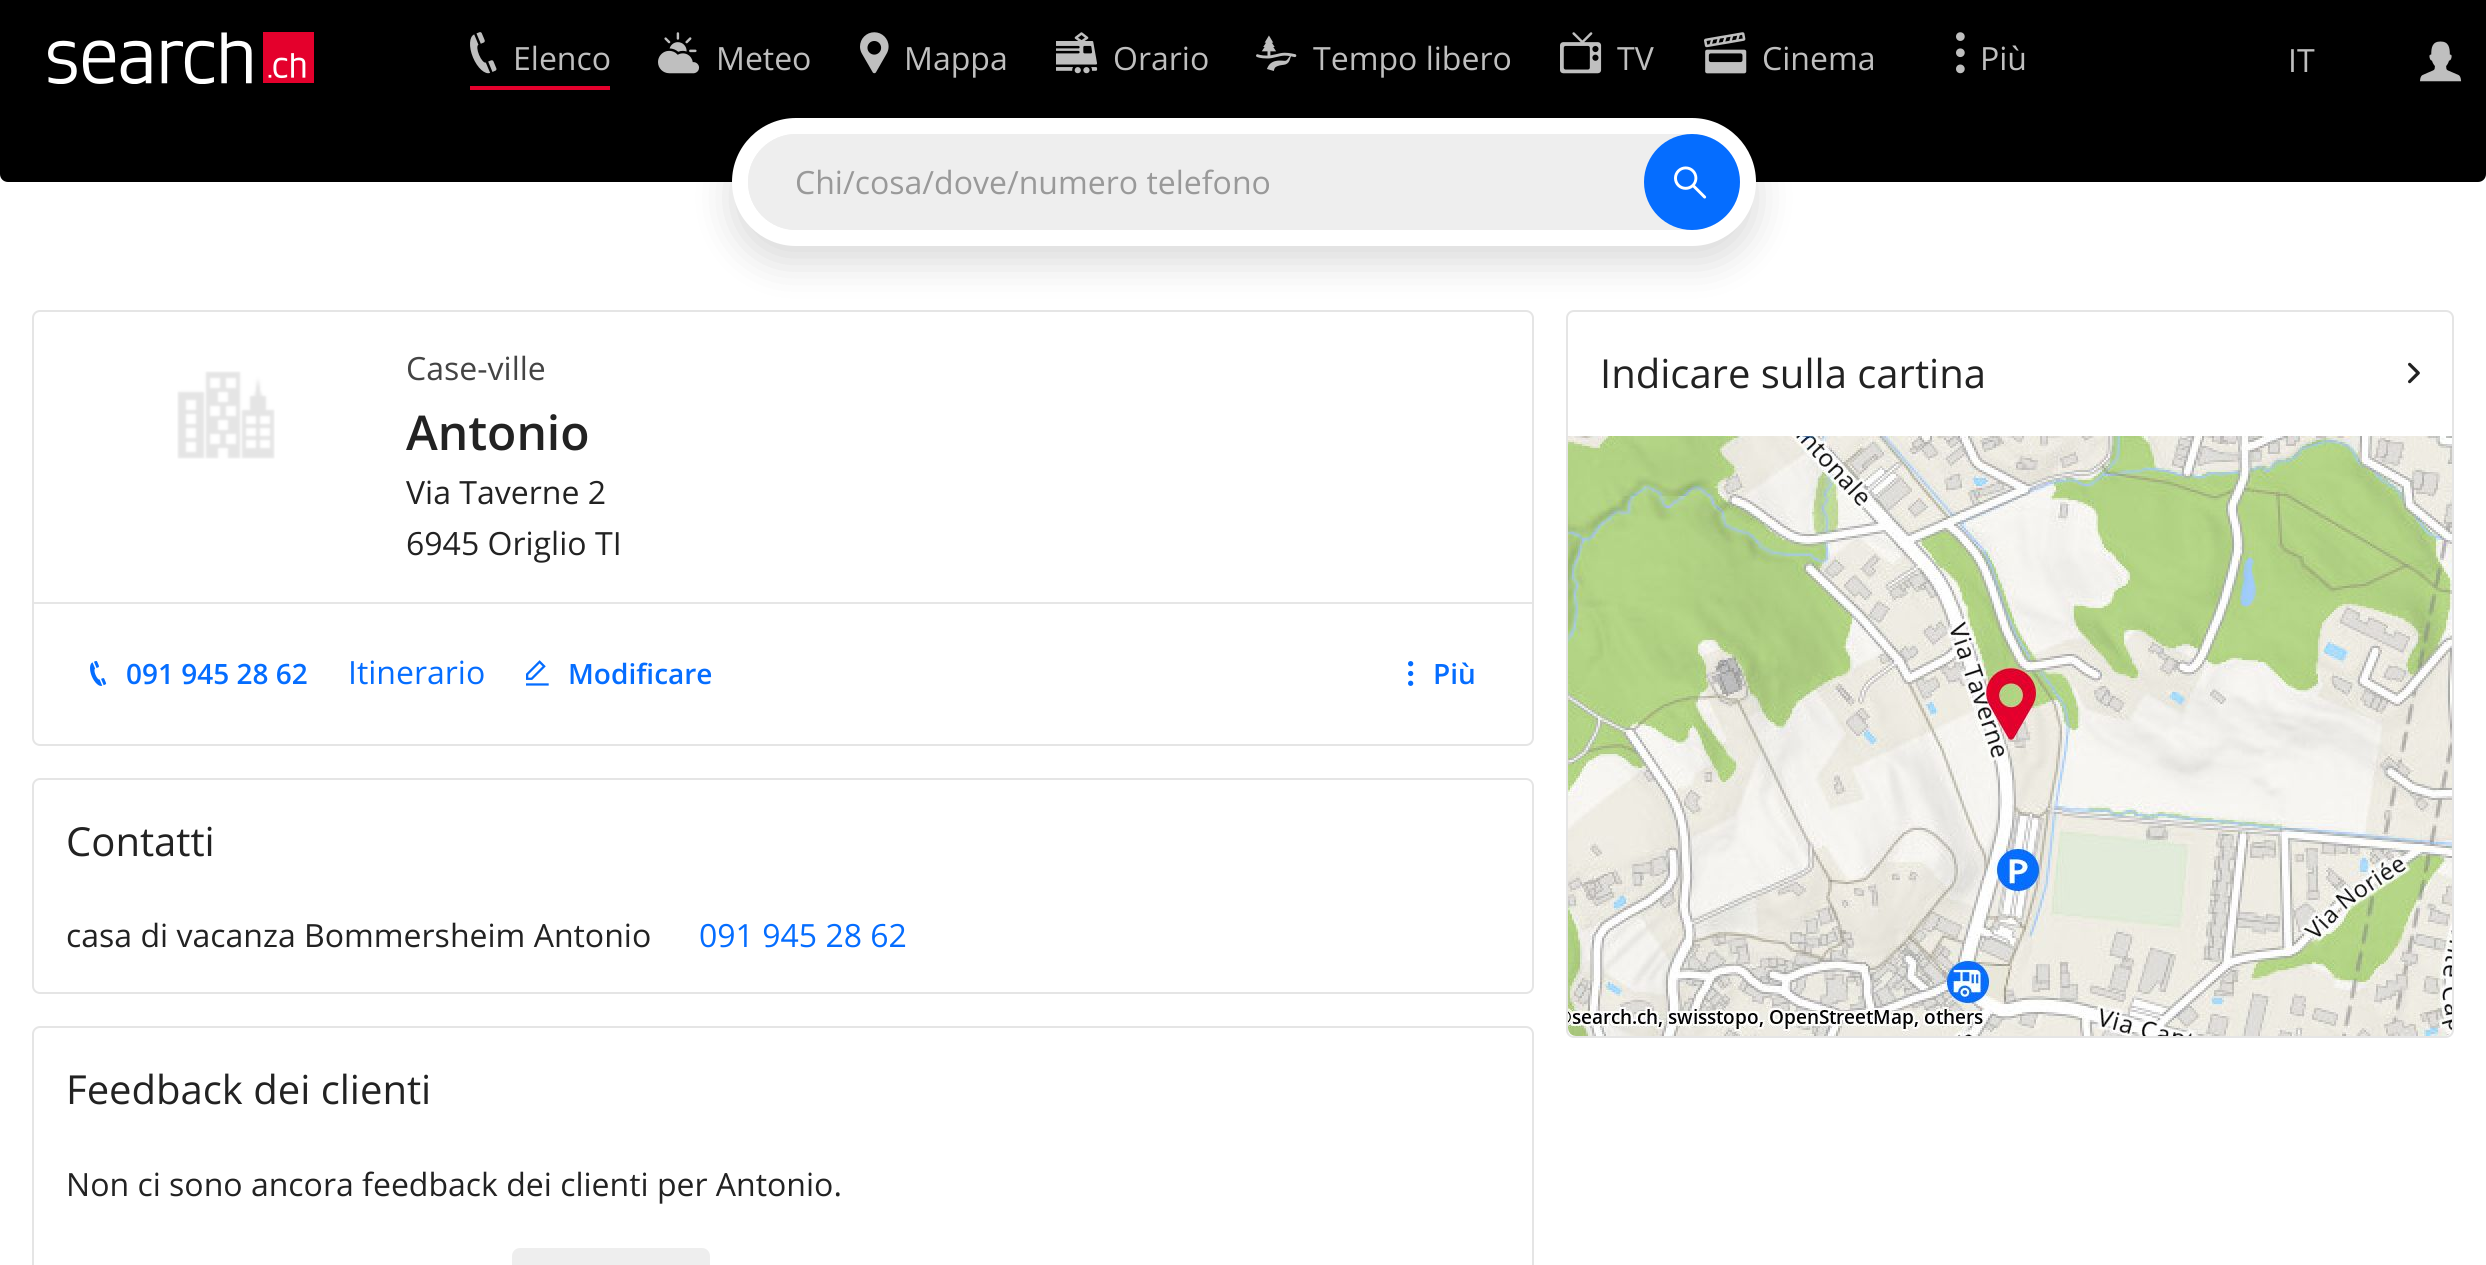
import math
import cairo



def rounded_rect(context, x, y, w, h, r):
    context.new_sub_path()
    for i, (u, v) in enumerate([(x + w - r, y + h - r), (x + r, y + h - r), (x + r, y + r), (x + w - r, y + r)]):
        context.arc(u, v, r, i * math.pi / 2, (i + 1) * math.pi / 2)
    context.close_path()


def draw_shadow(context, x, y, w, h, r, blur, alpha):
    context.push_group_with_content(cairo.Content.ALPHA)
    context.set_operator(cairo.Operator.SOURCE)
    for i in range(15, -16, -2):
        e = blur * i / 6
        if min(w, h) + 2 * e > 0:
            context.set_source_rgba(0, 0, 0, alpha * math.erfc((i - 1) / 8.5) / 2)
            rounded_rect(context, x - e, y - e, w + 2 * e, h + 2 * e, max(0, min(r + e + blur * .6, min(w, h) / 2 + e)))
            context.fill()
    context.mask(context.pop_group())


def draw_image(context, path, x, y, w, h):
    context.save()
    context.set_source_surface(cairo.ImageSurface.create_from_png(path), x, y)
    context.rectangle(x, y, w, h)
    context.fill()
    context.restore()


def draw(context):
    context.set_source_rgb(1, 1, 1)
    context.paint()
    context.set_source_rgb(0, 0, 0)
    context.rectangle(0, 0, 2486, 118)
    context.fill()
    draw_image(context, "images/1.png", 48, 32, 266, 52)
    context.set_source_rgb(228 / 255, 0, 44 / 255)
    context.rectangle(470, 86, 140, 4)
    context.fill()
    draw_image(context, "images/2.png", 470, 32, 27, 42)
    draw_image(context, "images/3.png", 658, 32, 42, 42)
    draw_image(context, "images/4.png", 860, 32, 29, 42)
    draw_image(context, "images/5.png", 1056, 32, 42, 42)
    draw_image(context, "images/6.png", 1256, 35, 41, 36)
    draw_image(context, "images/7.png", 1560, 32, 42, 42)
    draw_image(context, "images/8.png", 1704, 32, 43, 42)
    draw_image(context, "images/9.png", 1956, 32, 9, 42)
    draw_image(context, "images/10.png", 2420, 41, 42, 41)
    context.set_source_rgb(0, 0, 0)
    context.new_path()
    context.move_to(0, 118)
    context.line_to(2486, 118)
    context.line_to(2486, 174)
    context.curve_to(2486, 178.5, 2482.5, 182, 2478, 182)
    context.line_to(8, 182)
    context.curve_to(3.5, 182, 0, 178.5, 0, 174)
    context.close_path()
    context.fill()
    rounded_rect(context, 33, 311, 1500, 434, 7)
    context.set_source_rgb(229 / 255, 229 / 255, 229 / 255)
    context.stroke()
    rounded_rect(context, 1567, 311, 886, 726, 7)
    context.stroke()
    context.set_source_rgb(0, 0, 0)
    draw_shadow(context, 732, 134, 1024, 128, 64, 20, 0.15)
    context.set_source_rgb(1, 1, 1)
    rounded_rect(context, 732, 118, 1024, 128, 64)
    context.fill()
    context.set_source_rgb(238 / 255, 238 / 255, 238 / 255)
    rounded_rect(context, 748, 134, 992, 96, 48)
    context.fill()
    rounded_rect(context, 748, 134, 896, 96, 48)
    context.fill()
    context.set_source_rgb(5 / 255, 109 / 255, 1)
    context.arc(1692, 182, 48, 0, 2 * math.pi)
    context.fill()
    draw_image(context, "images/11.png", 1674, 166, 33, 33)
    draw_image(context, "images/12.png", 177, 371, 98, 88)
    context.set_source_rgb(230 / 255, 230 / 255, 230 / 255)
    context.rectangle(34, 602, 1498, 2)
    context.fill()
    draw_image(context, "images/13.png", 90, 661, 17, 25)
    draw_image(context, "images/14.png", 526, 660, 23, 26)
    draw_image(context, "images/15.png", 1408, 661, 6, 25)
    rounded_rect(context, 33, 779, 1500, 214, 7)
    context.set_source_rgb(229 / 255, 229 / 255, 229 / 255)
    context.stroke()
    rounded_rect(context, 33, 1027, 1500, 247, 7)
    context.stroke()
    context.set_source_rgb(238 / 255, 238 / 255, 238 / 255)
    rounded_rect(context, 512, 1248, 198, 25, 8)
    context.fill()
    draw_image(context, "images/16.png", 2408, 362, 12, 22)
    draw_image(context, "images/17.png", 1568, 436, 884, 600)
    context.select_font_face("Open Sans")
    context.set_font_size(32)
    context.set_source_rgb(191 / 255, 191 / 255, 191 / 255)
    context.move_to(513, 70)
    context.show_text("Elenco")
    context.move_to(716, 70)
    context.show_text("Meteo")
    context.move_to(904, 70)
    context.show_text("Mappa")
    context.move_to(1113, 70)
    context.show_text("Orario")
    context.move_to(1313, 70)
    context.show_text("Tempo libero")
    context.move_to(1617, 70)
    context.show_text("TV")
    context.move_to(1762, 70)
    context.show_text("Cinema")
    context.move_to(1980, 70)
    context.show_text("Più")
    context.move_to(2288, 72)
    context.show_text("IT")
    context.set_source_rgb(153 / 255, 153 / 255, 153 / 255)
    context.move_to(795, 194)
    context.show_text("Chi/cosa/dove/numero telefono")
    context.set_source_rgb(68 / 255, 68 / 255, 68 / 255)
    context.move_to(406, 380)
    context.show_text("Case-ville")
    context.select_font_face("Open Sans SemiBold")
    context.set_font_size(48)
    context.set_source_rgb(34 / 255, 34 / 255, 34 / 255)
    context.move_to(406, 450)
    context.show_text("Antonio")
    context.select_font_face("Open Sans")
    context.set_font_size(32)
    context.move_to(406, 504)
    context.show_text("Via Taverne 2")
    context.move_to(406, 555)
    context.show_text("6945 Origlio TI")
    context.select_font_face("Open Sans SemiBold")
    context.set_font_size(28)
    context.set_source_rgb(5 / 255, 109 / 255, 1)
    context.move_to(126, 684)
    context.show_text("091 945 28 62")
    context.select_font_face("Open Sans")
    context.set_font_size(32)
    context.move_to(348, 684)
    context.show_text("Itinerario")
    context.select_font_face("Open Sans SemiBold")
    context.set_font_size(28)
    context.move_to(568, 684)
    context.show_text("Modificare")
    context.move_to(1433, 684)
    context.show_text("Più")
    context.select_font_face("Open Sans")
    context.set_font_size(40)
    context.set_source_rgb(34 / 255, 34 / 255, 34 / 255)
    context.move_to(66, 856)
    context.show_text("Contatti")
    context.set_font_size(32)
    context.move_to(66, 947)
    context.show_text("casa di vacanza Bommersheim Antonio")
    context.set_source_rgb(5 / 255, 109 / 255, 1)
    context.move_to(699, 947)
    context.show_text("091 945 28 62")
    context.set_font_size(40)
    context.set_source_rgb(34 / 255, 34 / 255, 34 / 255)
    context.move_to(66, 1104)
    context.show_text("Feedback dei clienti")
    context.set_font_size(32)
    context.move_to(66, 1196)
    context.show_text("Non ci sono ancora feedback dei clienti per Antonio.")
    context.set_font_size(40)
    context.move_to(1600, 388)
    context.show_text("Indicare sulla cartina")


surface = cairo.ImageSurface(cairo.Format.RGB24, 2486, 1265)
context = cairo.Context(surface)
options = cairo.FontOptions()
options.set_hint_metrics(cairo.HintMetrics.OFF)
options.set_hint_style(cairo.HintStyle.NONE)
context.set_font_options(options)
context.set_miter_limit(4)
draw(context)
surface.write_to_png("out.png")
